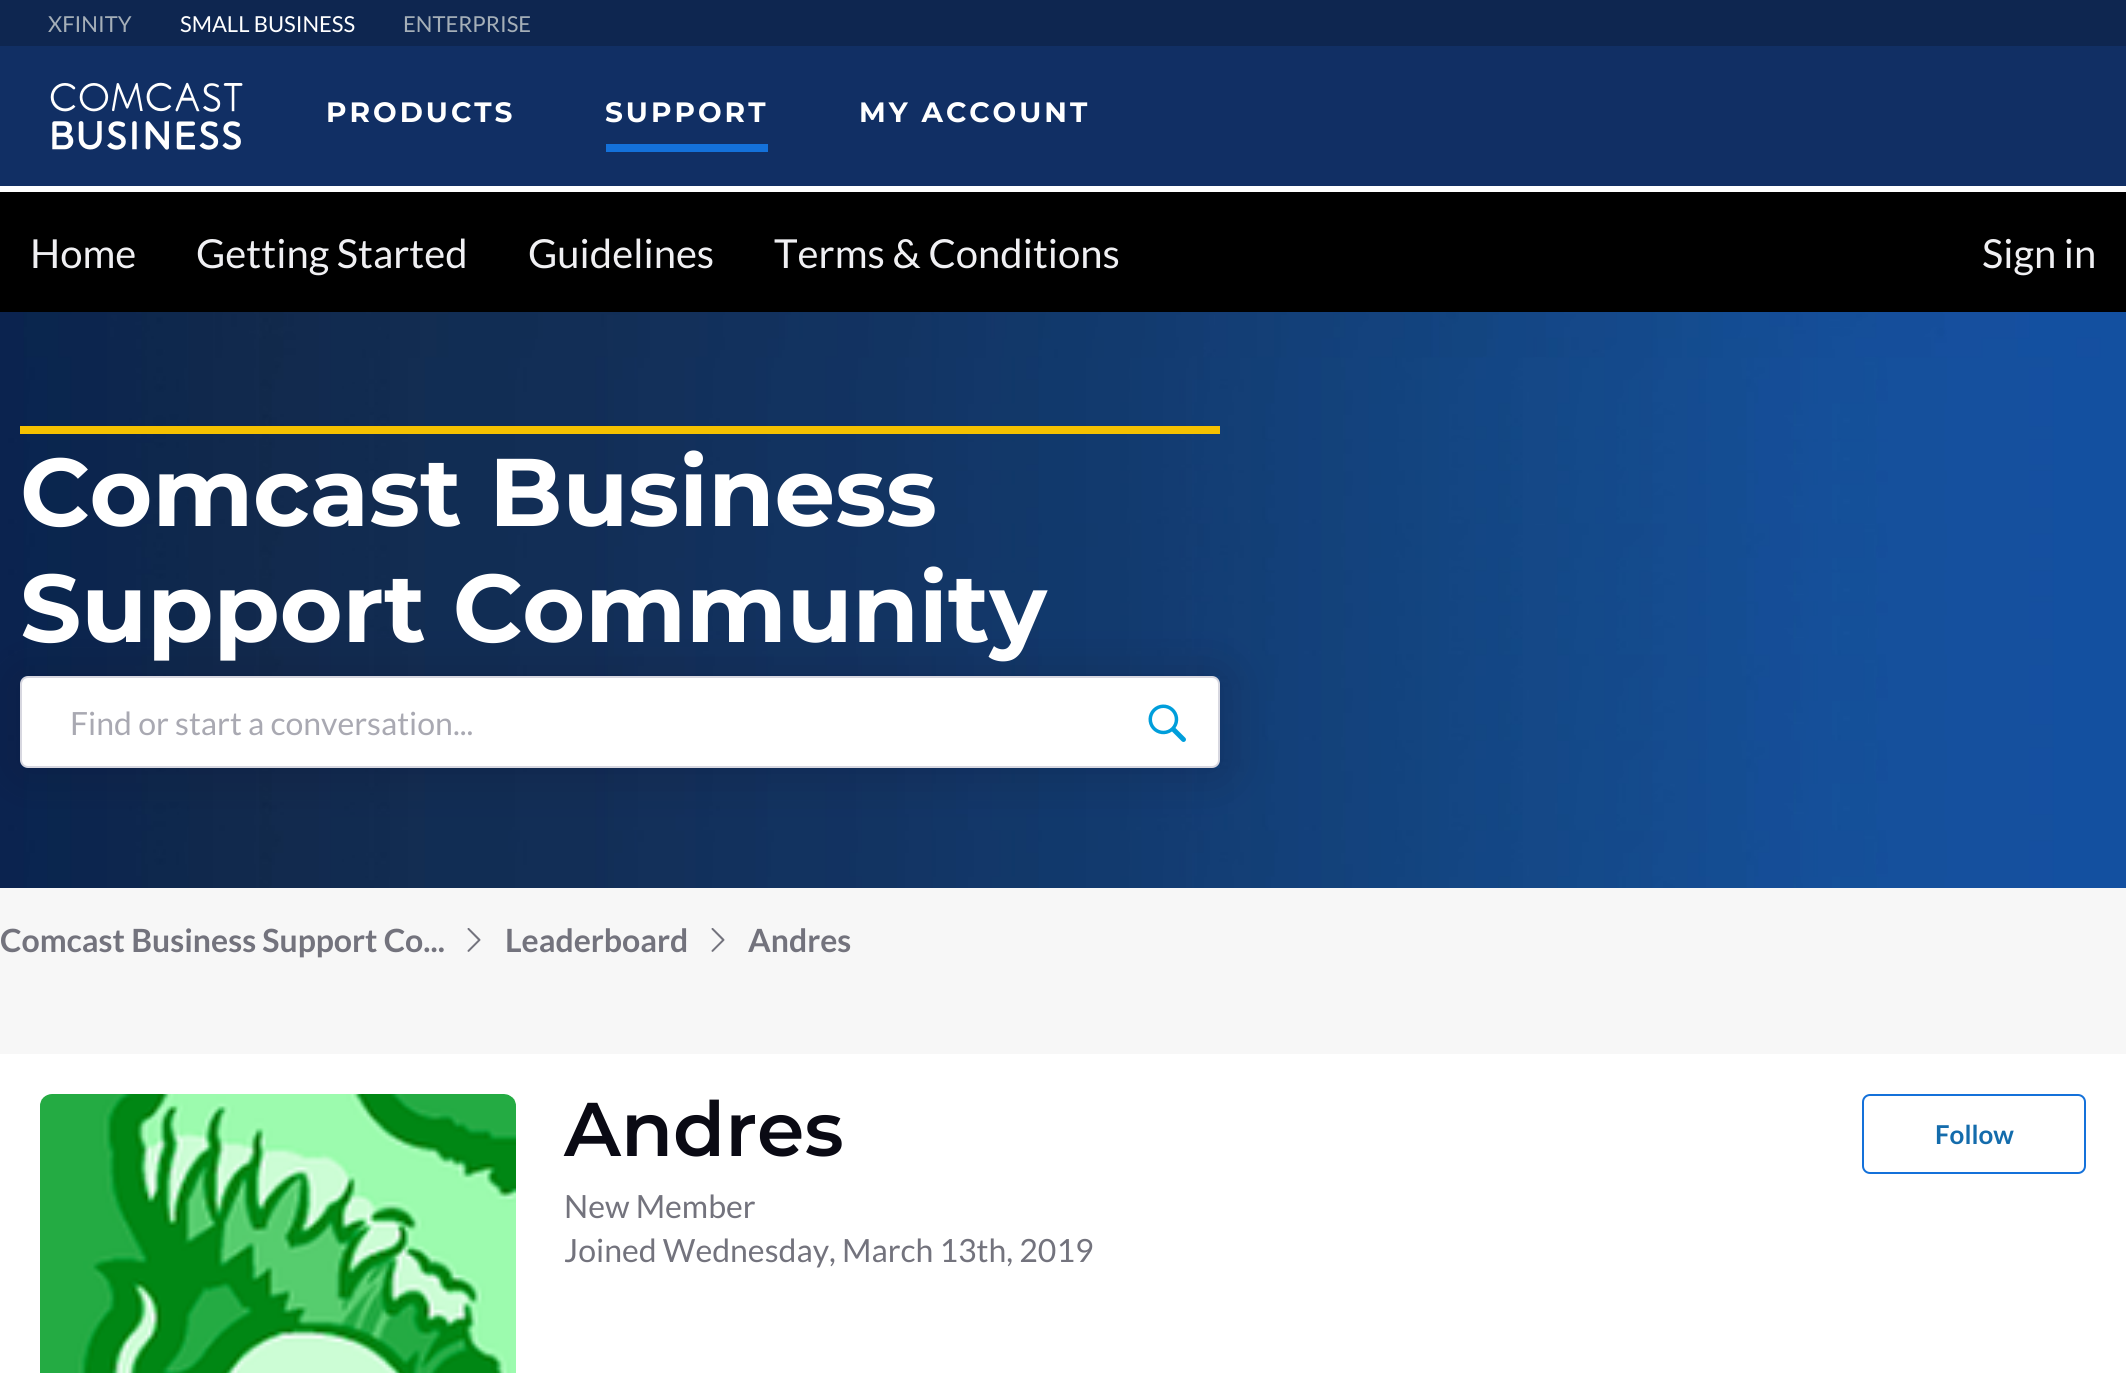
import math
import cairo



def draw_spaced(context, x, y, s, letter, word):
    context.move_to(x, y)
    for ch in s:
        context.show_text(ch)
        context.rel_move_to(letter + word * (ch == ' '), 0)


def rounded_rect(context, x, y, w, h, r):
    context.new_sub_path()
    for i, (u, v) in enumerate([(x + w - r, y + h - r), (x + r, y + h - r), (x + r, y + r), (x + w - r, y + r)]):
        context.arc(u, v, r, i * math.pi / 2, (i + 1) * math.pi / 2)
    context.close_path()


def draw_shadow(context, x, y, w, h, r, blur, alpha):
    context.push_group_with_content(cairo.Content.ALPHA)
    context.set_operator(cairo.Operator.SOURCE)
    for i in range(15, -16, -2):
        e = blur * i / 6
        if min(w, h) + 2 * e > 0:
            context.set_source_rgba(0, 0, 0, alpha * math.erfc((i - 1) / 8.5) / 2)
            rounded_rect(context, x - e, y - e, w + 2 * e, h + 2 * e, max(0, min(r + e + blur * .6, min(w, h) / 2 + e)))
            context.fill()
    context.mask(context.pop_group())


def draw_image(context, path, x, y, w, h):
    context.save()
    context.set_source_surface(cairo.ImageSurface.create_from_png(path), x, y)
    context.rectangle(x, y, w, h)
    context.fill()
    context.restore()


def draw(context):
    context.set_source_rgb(14 / 255, 38 / 255, 80 / 255)
    context.paint()
    context.set_source_rgb(17 / 255, 47 / 255, 100 / 255)
    context.rectangle(0, 46, 2126, 140)
    context.fill()
    draw_image(context, "images/1.png", 50, 82, 193, 68)
    context.set_source_rgb(20 / 255, 113 / 255, 218 / 255)
    context.rectangle(606, 144, 162, 8)
    context.fill()
    context.set_source_rgb(247 / 255, 247 / 255, 247 / 255)
    context.rectangle(0, 888, 2126, 166)
    context.fill()
    draw_image(context, "images/2.png", 0, 312, 2126, 576)
    context.set_source_rgb(1, 1, 1)
    context.rectangle(0, 186, 2126, 6)
    context.fill()
    context.set_source_rgb(0, 0, 0)
    context.rectangle(0, 192, 2126, 120)
    context.fill()
    context.set_source_rgb(245 / 255, 193 / 255, 0)
    context.rectangle(20, 426, 1200, 8)
    context.fill()
    context.save()
    context.set_fill_rule(cairo.FillRule.EVEN_ODD)
    context.new_path()
    context.move_to(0, 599)
    context.line_to(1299, 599)
    context.line_to(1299, 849)
    context.line_to(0, 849)
    context.close_path()
    context.move_to(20, 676)
    context.line_to(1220, 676)
    context.line_to(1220, 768)
    context.line_to(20, 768)
    context.close_path()
    context.clip()
    context.set_source_rgb(16 / 255, 16 / 255, 46 / 255)
    draw_shadow(context, 20, 678, 1200, 92, 0, 26, 0.3)
    context.restore()
    context.set_source_rgb(1, 1, 1)
    rounded_rect(context, 21, 677, 1198, 90, 7)
    context.fill_preserve()
    context.set_source_rgb(215 / 255, 215 / 255, 224 / 255)
    context.stroke()
    draw_image(context, "images/3.png", 1148, 704, 38, 38)
    draw_image(context, "images/4.png", 467, 928, 14, 24)
    draw_image(context, "images/4.png", 711, 928, 14, 24)
    context.set_source_rgb(1, 1, 1)
    context.rectangle(0, 1054, 2126, 319)
    context.fill()
    draw_image(context, "images/5.png", 40, 1094, 476, 279)
    rounded_rect(context, 1863, 1095, 222, 78, 7)
    context.set_source_rgb(20 / 255, 113 / 255, 218 / 255)
    context.stroke()
    context.select_font_face("Lato")
    context.set_font_size(22)
    context.set_source_rgb(165 / 255, 175 / 255, 184 / 255)
    context.move_to(48, 32)
    context.show_text("XFINITY")
    context.set_source_rgb(1, 1, 1)
    context.move_to(180, 32)
    context.show_text("SMALL BUSINESS")
    context.set_source_rgb(165 / 255, 175 / 255, 184 / 255)
    context.move_to(403, 32)
    context.show_text("ENTERPRISE")
    context.select_font_face("Montserrat", cairo.FontSlant.NORMAL, cairo.FontWeight.BOLD)
    context.set_font_size(28)
    context.set_source_rgb(1, 1, 1)
    draw_spaced(context, 326, 122, "PRODUCTS", 3, 0)
    draw_spaced(context, 605, 122, "SUPPORT", 3, 0)
    draw_spaced(context, 859, 122, "MY ACCOUNT", 3, 0)
    context.select_font_face("Lato")
    context.set_font_size(40)
    context.set_source_rgb(240 / 255, 240 / 255, 243 / 255)
    context.move_to(30, 268)
    context.show_text("Home")
    context.move_to(196, 268)
    context.show_text("Getting Started")
    context.move_to(528, 268)
    context.show_text("Guidelines")
    context.move_to(774, 268)
    context.show_text("Terms & Conditions")
    context.move_to(1982, 268)
    context.show_text("Sign in")
    context.select_font_face("Montserrat", cairo.FontSlant.NORMAL, cairo.FontWeight.BOLD)
    context.set_font_size(96)
    context.set_source_rgb(1, 1, 1)
    context.move_to(20, 526)
    context.show_text("Comcast Business")
    context.move_to(20, 642)
    context.show_text("Support Community")
    context.select_font_face("Lato")
    context.set_font_size(32)
    context.set_source_rgb(169 / 255, 169 / 255, 178 / 255)
    context.move_to(70, 735)
    context.show_text("Find or start a conversation...")
    context.select_font_face("Lato", cairo.FontSlant.NORMAL, cairo.FontWeight.BOLD)
    context.set_source_rgb(115 / 255, 115 / 255, 125 / 255)
    context.move_to(0, 952)
    context.show_text("Comcast Business Support Co...")
    context.move_to(505, 952)
    context.show_text("Leaderboard")
    context.move_to(748, 952)
    context.show_text("Andres")
    context.select_font_face("Montserrat SemiBold")
    context.set_font_size(76)
    context.set_source_rgb(10 / 255, 10 / 255, 20 / 255)
    context.move_to(564, 1156)
    context.show_text("Andres")
    context.select_font_face("Lato")
    context.set_font_size(32)
    context.set_source_rgb(115 / 255, 115 / 255, 125 / 255)
    context.move_to(564, 1218)
    context.show_text("New Member")
    context.move_to(564, 1262)
    context.show_text("Joined Wednesday, March 13th, 2019")
    context.select_font_face("Lato", cairo.FontSlant.NORMAL, cairo.FontWeight.BOLD)
    context.set_font_size(26)
    context.set_source_rgb(20 / 255, 108 / 255, 172 / 255)
    context.move_to(1935, 1144)
    context.show_text("Follow")


surface = cairo.ImageSurface(cairo.Format.RGB24, 2126, 1373)
context = cairo.Context(surface)
options = cairo.FontOptions()
options.set_hint_metrics(cairo.HintMetrics.OFF)
options.set_hint_style(cairo.HintStyle.NONE)
context.set_font_options(options)
context.set_miter_limit(4)
draw(context)
surface.write_to_png("out.png")
